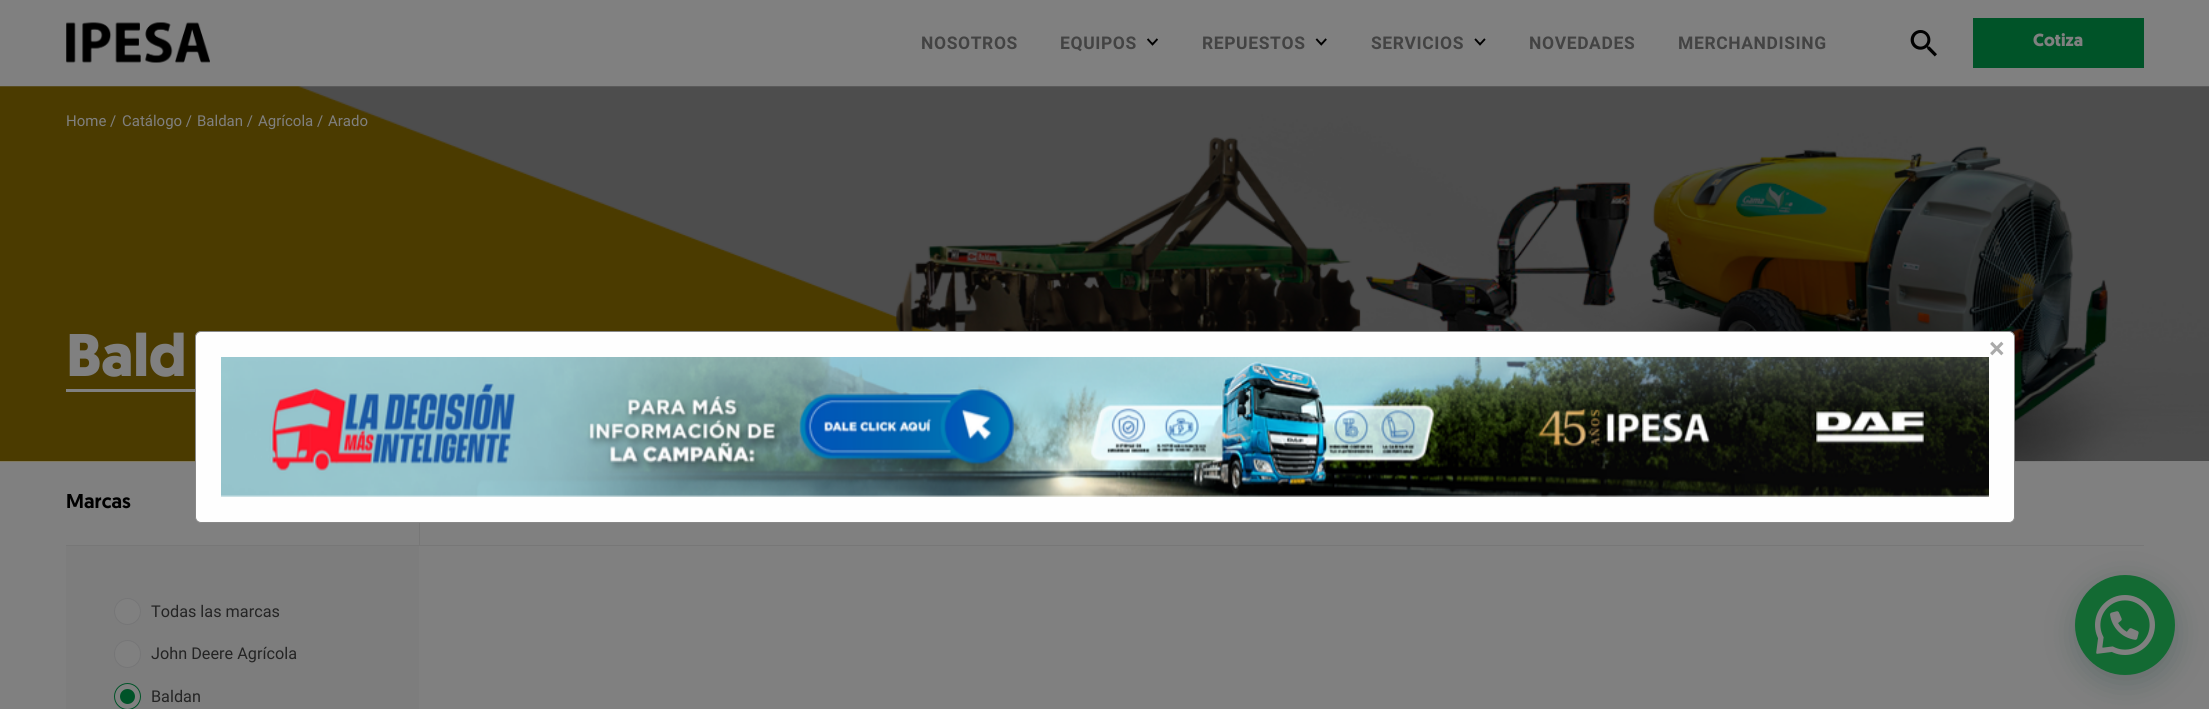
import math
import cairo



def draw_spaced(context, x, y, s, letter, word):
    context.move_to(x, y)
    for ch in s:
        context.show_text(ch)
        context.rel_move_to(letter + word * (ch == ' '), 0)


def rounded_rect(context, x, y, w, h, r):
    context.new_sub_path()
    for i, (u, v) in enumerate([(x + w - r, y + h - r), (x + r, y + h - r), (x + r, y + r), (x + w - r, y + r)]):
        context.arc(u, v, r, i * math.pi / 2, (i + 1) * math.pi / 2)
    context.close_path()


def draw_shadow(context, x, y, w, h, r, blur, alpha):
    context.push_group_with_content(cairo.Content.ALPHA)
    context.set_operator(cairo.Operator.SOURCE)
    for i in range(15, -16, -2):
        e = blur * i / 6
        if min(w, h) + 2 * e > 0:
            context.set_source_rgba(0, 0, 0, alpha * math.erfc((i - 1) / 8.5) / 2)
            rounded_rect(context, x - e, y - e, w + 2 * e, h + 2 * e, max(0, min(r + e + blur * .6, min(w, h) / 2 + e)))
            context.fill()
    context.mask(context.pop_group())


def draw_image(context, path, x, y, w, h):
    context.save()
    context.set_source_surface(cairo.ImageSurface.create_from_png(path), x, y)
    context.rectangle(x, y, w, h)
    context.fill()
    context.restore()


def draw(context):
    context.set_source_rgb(128 / 255, 128 / 255, 128 / 255)
    context.paint()
    draw_image(context, "images/1.png", 66, 22, 144, 41)
    draw_image(context, "images/2.png", 1147, 38, 11, 8)
    draw_image(context, "images/3.png", 1315, 38, 12, 8)
    draw_image(context, "images/4.png", 1474, 38, 12, 8)
    draw_image(context, "images/5.png", 1910, 30, 27, 27)
    context.set_source_rgb(0, 83 / 255, 40 / 255)
    context.rectangle(1973, 18, 171, 50)
    context.fill()
    draw_image(context, "images/6.png", 0, 86, 2209, 376)
    context.set_source_rgb(128 / 255, 128 / 255, 128 / 255)
    context.rectangle(66, 389, 129, 3)
    context.fill()
    context.set_source_rgb(254 / 255, 254 / 255, 254 / 255)
    rounded_rect(context, 195.5, 331.5, 1819, 191, 5.5)
    context.fill_preserve()
    context.set_source_rgb(136 / 255, 136 / 255, 136 / 255)
    context.set_line_width(1)
    context.stroke()
    draw_image(context, "images/7.png", 221, 357, 1768, 140)
    context.set_source_rgb(119 / 255, 119 / 255, 119 / 255)
    context.rectangle(66, 545, 2078, 1)
    context.fill()
    context.rectangle(419, 523, 1, 22)
    context.fill()
    context.set_source_rgb(125 / 255, 125 / 255, 125 / 255)
    context.rectangle(66, 546, 353, 163)
    context.fill()
    context.set_source_rgb(128 / 255, 128 / 255, 128 / 255)
    context.arc(127.5, 611.5, 13, 0, 2 * math.pi)
    context.fill_preserve()
    context.set_source_rgb(118 / 255, 118 / 255, 119 / 255)
    context.stroke()
    context.set_source_rgb(128 / 255, 128 / 255, 128 / 255)
    rounded_rect(context, 114.5, 640.5, 26, 27, 13)
    context.fill_preserve()
    context.set_source_rgb(118 / 255, 118 / 255, 119 / 255)
    context.stroke()
    context.set_source_rgb(128 / 255, 128 / 255, 128 / 255)
    context.arc(127.5, 696.5, 13, 0, 2 * math.pi)
    context.fill_preserve()
    context.set_source_rgb(0, 83 / 255, 40 / 255)
    context.stroke()
    context.arc(127.5, 696.5, 7.5, 0, 2 * math.pi)
    context.fill()
    context.set_source_rgb(4 / 255, 47 / 255, 42 / 255)
    draw_shadow(context, 2076, 583, 100, 100, 50, 15, 0.24)
    context.set_source_rgb(19 / 255, 106 / 255, 51 / 255)
    context.arc(2125, 625, 50, 0, 2 * math.pi)
    context.fill()
    draw_image(context, "images/8.png", 2095, 595, 60, 60)
    context.select_font_face("Roboto", cairo.FontSlant.NORMAL, cairo.FontWeight.BOLD)
    context.set_font_size(17.5)
    context.set_source_rgb(67 / 255, 67 / 255, 67 / 255)
    draw_spaced(context, 921, 49, "NOSOTROS", 0.6, 0)
    draw_spaced(context, 1060, 49, "EQUIPOS", 0.6, 0)
    draw_spaced(context, 1202, 49, "REPUESTOS", 0.6, 0)
    draw_spaced(context, 1371, 49, "SERVICIOS", 0.6, 0)
    draw_spaced(context, 1529, 49, "NOVEDADES", 0.6, 0)
    draw_spaced(context, 1678, 49, "MERCHANDISING", 0.6, 0)
    context.select_font_face("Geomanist", cairo.FontSlant.NORMAL, cairo.FontWeight.BOLD)
    context.set_source_rgb(128 / 255, 128 / 255, 128 / 255)
    context.move_to(2033, 46)
    context.show_text("Cotiza")
    context.select_font_face("Roboto")
    context.set_font_size(15)
    context.move_to(66, 126)
    context.show_text("Home /")
    context.move_to(122, 126)
    context.show_text("Catálogo /")
    context.move_to(197, 126)
    context.show_text("Baldan /")
    context.move_to(258, 126)
    context.show_text("Agrícola /")
    context.move_to(328, 126)
    context.show_text("Arado")
    context.select_font_face("Geomanist", cairo.FontSlant.NORMAL, cairo.FontWeight.BOLD)
    context.set_font_size(60)
    context.move_to(66, 376)
    context.show_text("Bald")
    context.select_font_face("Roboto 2", cairo.FontSlant.NORMAL, cairo.FontWeight.BOLD)
    context.set_font_size(28)
    context.set_source_rgb(170 / 255, 170 / 255, 170 / 255)
    context.move_to(1989, 358)
    context.show_text("×")
    context.select_font_face("Geomanist Medium")
    context.set_font_size(20)
    context.set_source_rgb(0, 0, 0)
    context.move_to(66, 508)
    context.show_text("Marcas")
    context.select_font_face("Roboto")
    context.set_font_size(16.25)
    context.set_source_rgb(36 / 255, 36 / 255, 36 / 255)
    context.move_to(151, 617)
    context.show_text("Todas las marcas")
    context.move_to(151, 659)
    context.show_text("John Deere Agrícola")
    context.move_to(151, 702)
    context.show_text("Baldan")


surface = cairo.ImageSurface(cairo.Format.RGB24, 2209, 709)
context = cairo.Context(surface)
options = cairo.FontOptions()
options.set_hint_metrics(cairo.HintMetrics.OFF)
options.set_hint_style(cairo.HintStyle.NONE)
context.set_font_options(options)
context.set_miter_limit(4)
draw(context)
surface.write_to_png("out.png")
